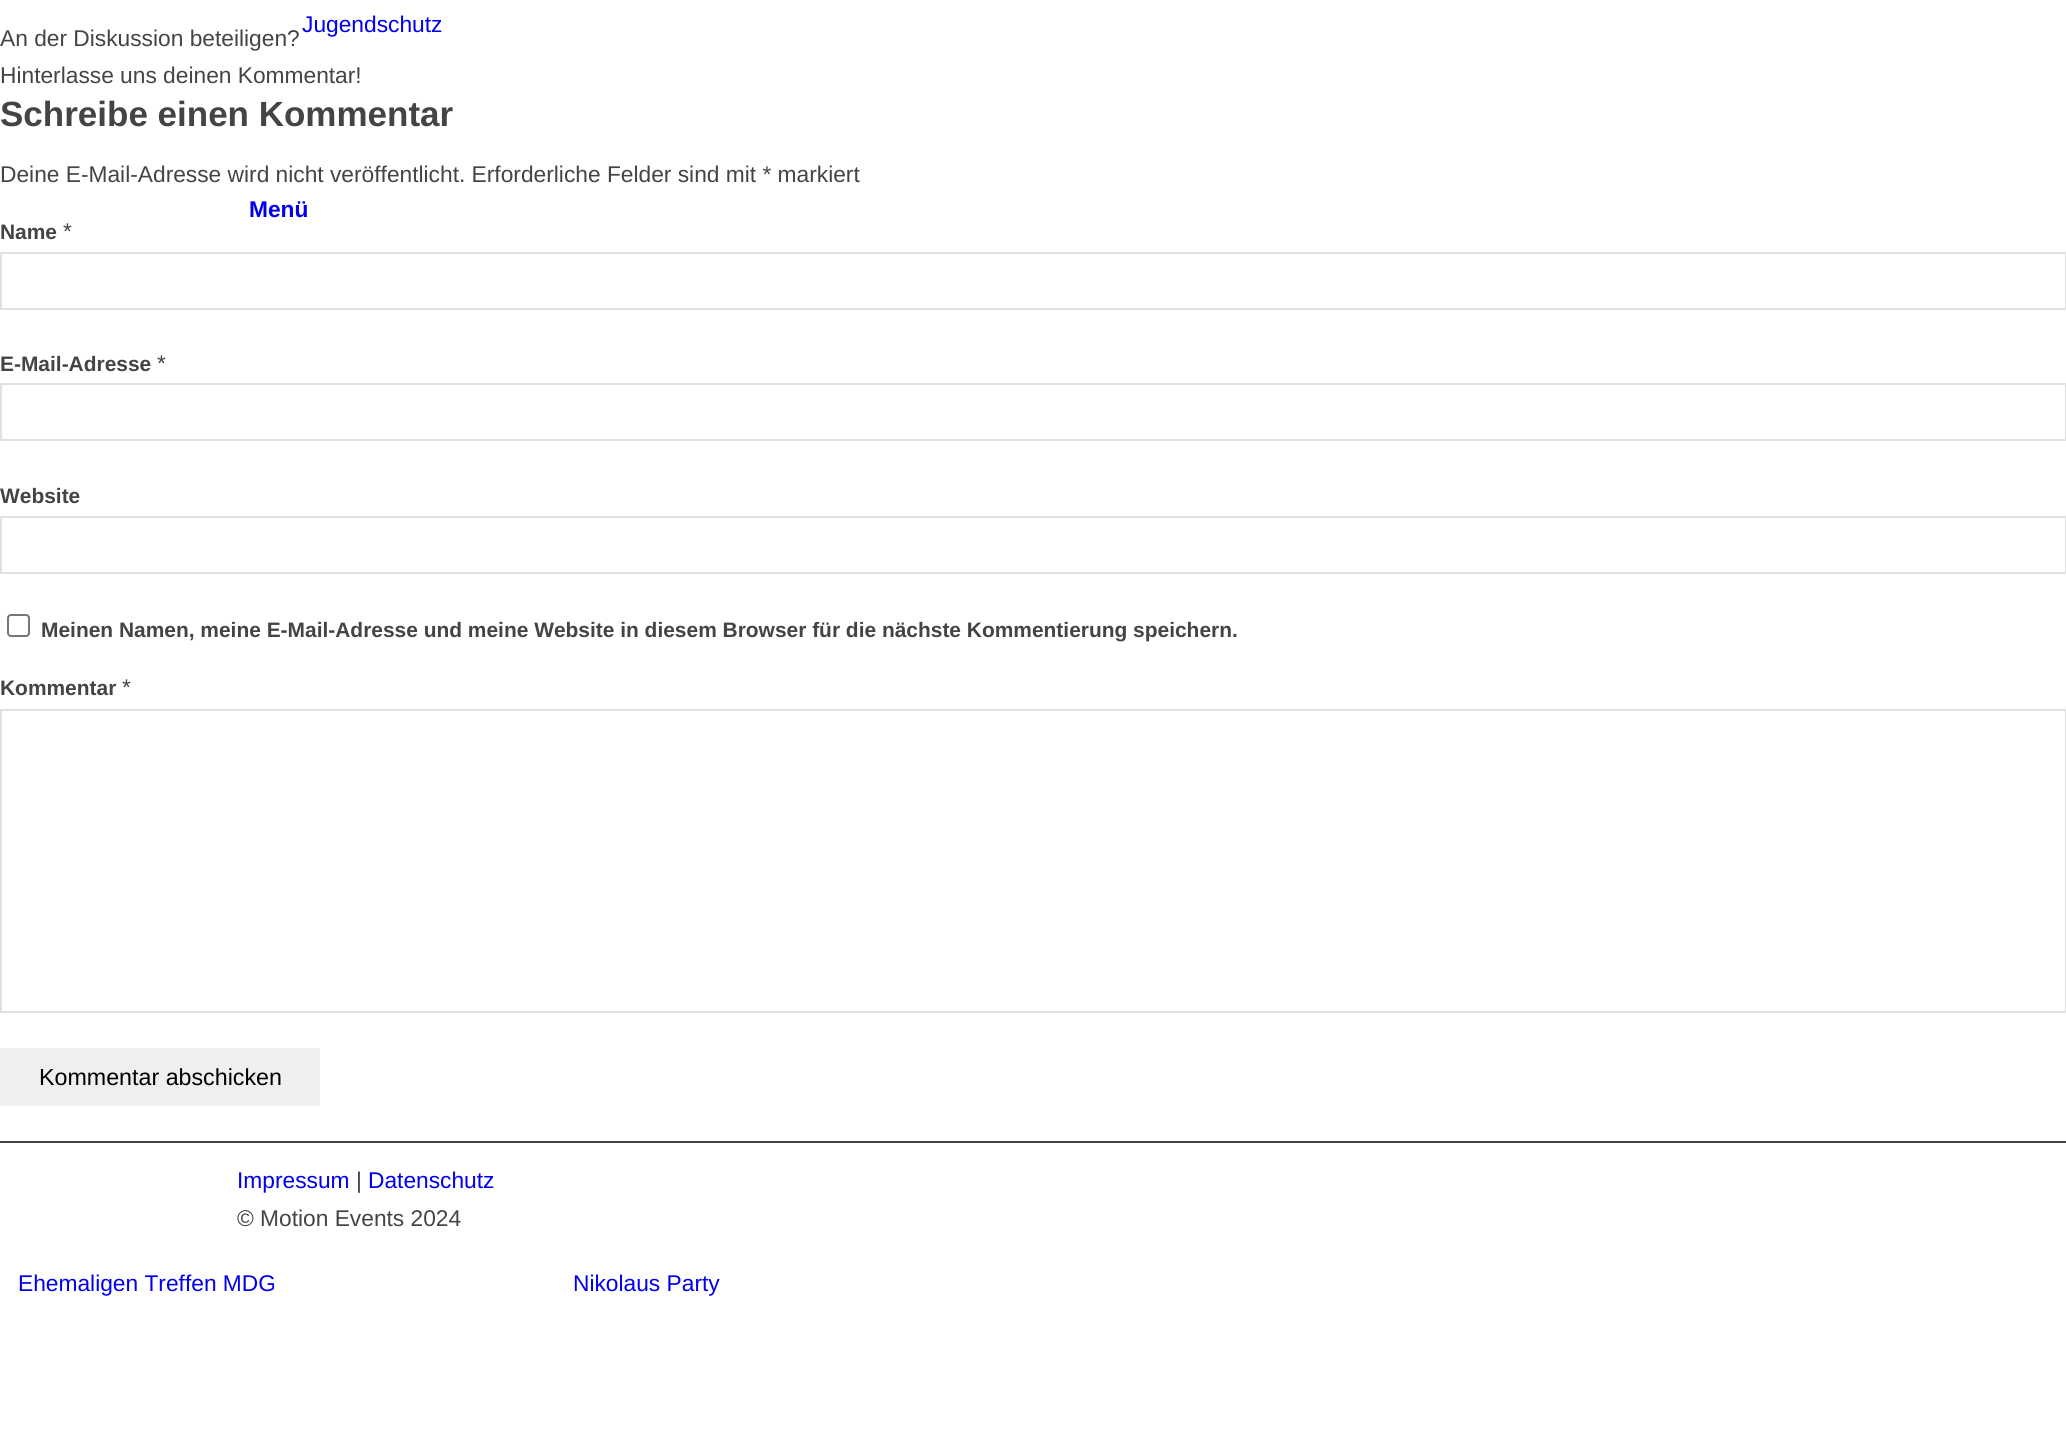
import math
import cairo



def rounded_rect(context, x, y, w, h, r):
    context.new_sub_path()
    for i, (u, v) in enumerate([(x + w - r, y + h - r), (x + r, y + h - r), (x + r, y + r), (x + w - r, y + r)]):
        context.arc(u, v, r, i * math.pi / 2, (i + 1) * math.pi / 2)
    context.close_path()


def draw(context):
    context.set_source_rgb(1, 1, 1)
    context.paint()
    context.rectangle(1, 253, 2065, 56)
    context.set_source_rgb(225 / 255, 225 / 255, 225 / 255)
    context.stroke()
    context.rectangle(1, 384, 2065, 56)
    context.stroke()
    context.rectangle(1, 517, 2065, 56)
    context.stroke()
    rounded_rect(context, 8, 615, 21, 21, 3)
    context.set_source_rgb(118 / 255, 118 / 255, 118 / 255)
    context.stroke()
    context.rectangle(1, 710, 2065, 302)
    context.set_source_rgb(225 / 255, 225 / 255, 225 / 255)
    context.stroke()
    context.set_source_rgb(239 / 255, 239 / 255, 239 / 255)
    context.rectangle(0, 1048, 320, 58)
    context.fill()
    context.set_source_rgb(68 / 255, 68 / 255, 68 / 255)
    context.rectangle(0, 1141, 2066, 2)
    context.fill()
    context.select_font_face("Liberation Sans")
    context.set_font_size(22.75)
    context.set_source_rgb(0, 0, 238 / 255)
    context.move_to(302, 32)
    context.show_text("Jugendschutz")
    context.select_font_face("Liberation Sans", cairo.FontSlant.NORMAL, cairo.FontWeight.BOLD)
    context.move_to(249, 217)
    context.show_text("Menü")
    context.select_font_face("Liberation Sans")
    context.set_source_rgb(68 / 255, 68 / 255, 68 / 255)
    context.move_to(0, 46)
    context.show_text("An der Diskussion beteiligen?")
    context.move_to(0, 83)
    context.show_text("Hinterlasse uns deinen Kommentar!")
    context.select_font_face("Liberation Sans", cairo.FontSlant.NORMAL, cairo.FontWeight.BOLD)
    context.set_font_size(35)
    context.move_to(0, 126)
    context.show_text("Schreibe einen Kommentar")
    context.select_font_face("Liberation Sans")
    context.set_font_size(22.75)
    context.move_to(0, 182)
    context.show_text("Deine E-Mail-Adresse wird nicht veröffentlicht. Erforderliche Felder sind mit * markiert")
    context.select_font_face("Liberation Sans", cairo.FontSlant.NORMAL, cairo.FontWeight.BOLD)
    context.set_font_size(20.93)
    context.move_to(0, 239)
    context.show_text("Name")
    context.select_font_face("Liberation Sans")
    context.set_font_size(22.75)
    context.move_to(63, 239)
    context.show_text("*")
    context.select_font_face("Liberation Sans", cairo.FontSlant.NORMAL, cairo.FontWeight.BOLD)
    context.set_font_size(20.93)
    context.move_to(0, 371)
    context.show_text("E-Mail-Adresse")
    context.select_font_face("Liberation Sans")
    context.set_font_size(22.75)
    context.move_to(157, 371)
    context.show_text("*")
    context.select_font_face("Liberation Sans", cairo.FontSlant.NORMAL, cairo.FontWeight.BOLD)
    context.set_font_size(20.93)
    context.move_to(0, 503)
    context.show_text("Website")
    context.move_to(41, 637)
    context.show_text("Meinen Namen, meine E-Mail-Adresse und meine Website in diesem Browser für die nächste Kommentierung speichern.")
    context.move_to(0, 695)
    context.show_text("Kommentar")
    context.select_font_face("Liberation Sans")
    context.set_font_size(22.75)
    context.move_to(122, 695)
    context.show_text("*")
    context.set_font_size(23.25)
    context.set_source_rgb(0, 0, 0)
    context.move_to(39, 1085)
    context.show_text("Kommentar abschicken")
    context.set_font_size(22.75)
    context.set_source_rgb(0, 0, 238 / 255)
    context.move_to(237, 1188)
    context.show_text("Impressum")
    context.set_source_rgb(68 / 255, 68 / 255, 68 / 255)
    context.move_to(356, 1188)
    context.show_text("|")
    context.set_source_rgb(0, 0, 238 / 255)
    context.move_to(368, 1188)
    context.show_text("Datenschutz")
    context.set_source_rgb(68 / 255, 68 / 255, 68 / 255)
    context.move_to(237, 1226)
    context.show_text("© Motion Events 2024")
    context.set_source_rgb(0, 0, 238 / 255)
    context.move_to(18, 1291)
    context.show_text("Ehemaligen Treffen MDG")
    context.move_to(573, 1291)
    context.show_text("Nikolaus Party")


surface = cairo.ImageSurface(cairo.Format.RGB24, 2066, 1433)
context = cairo.Context(surface)
options = cairo.FontOptions()
options.set_hint_metrics(cairo.HintMetrics.OFF)
options.set_hint_style(cairo.HintStyle.NONE)
context.set_font_options(options)
context.set_miter_limit(4)
draw(context)
surface.write_to_png("out.png")
